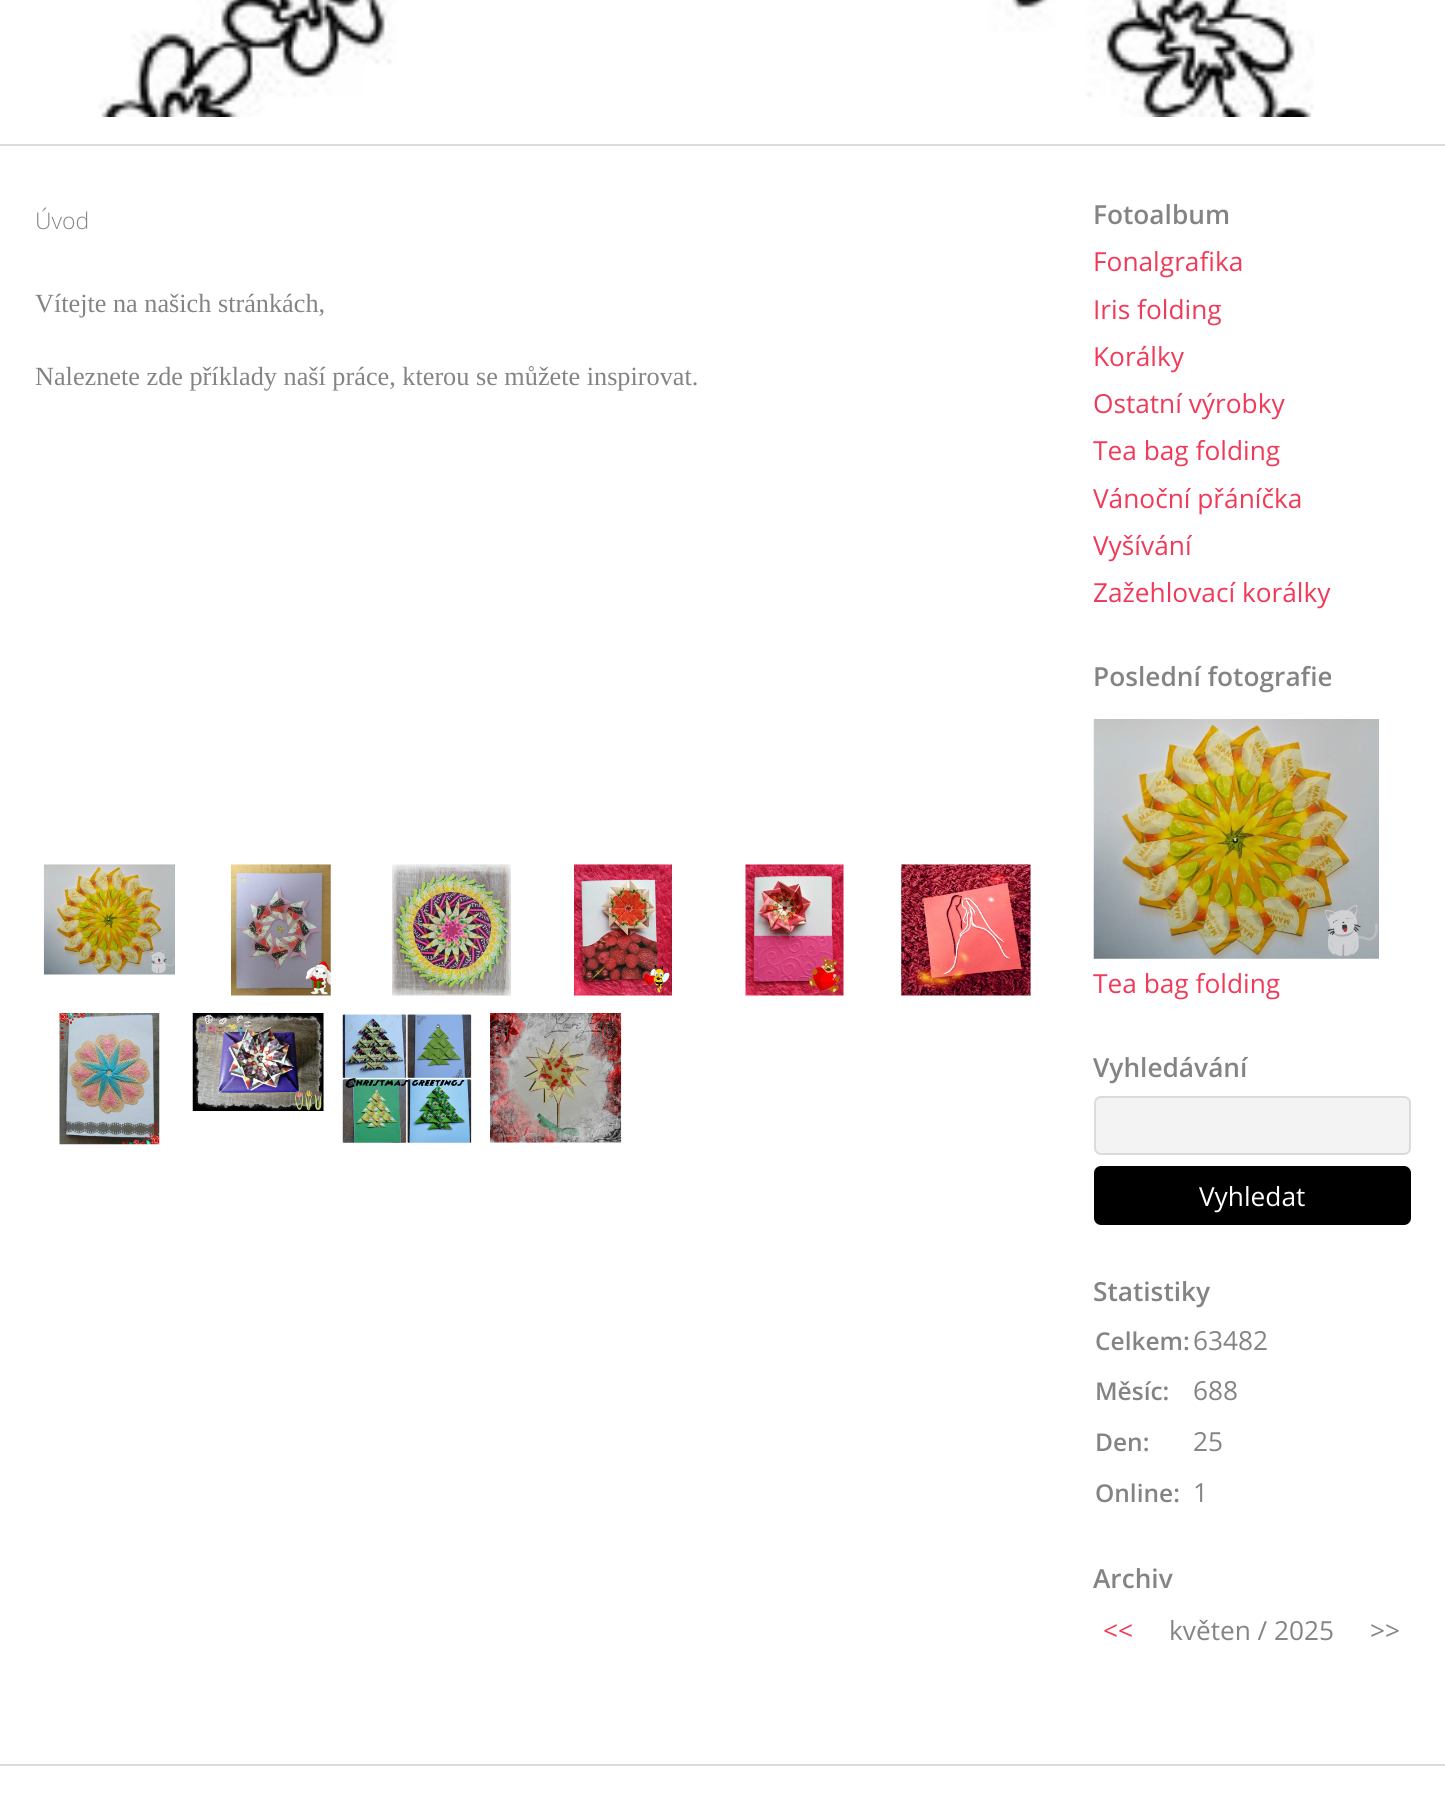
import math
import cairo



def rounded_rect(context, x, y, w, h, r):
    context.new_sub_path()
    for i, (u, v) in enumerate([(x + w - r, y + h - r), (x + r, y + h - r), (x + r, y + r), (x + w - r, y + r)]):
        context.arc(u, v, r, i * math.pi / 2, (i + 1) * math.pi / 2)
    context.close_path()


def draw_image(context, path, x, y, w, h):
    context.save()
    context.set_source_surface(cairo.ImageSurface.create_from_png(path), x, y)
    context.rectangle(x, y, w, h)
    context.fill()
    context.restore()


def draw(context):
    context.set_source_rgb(1, 1, 1)
    context.paint()
    draw_image(context, "images/1.png", 98, 0, 1216, 117)
    context.set_source_rgb(219 / 255, 219 / 255, 219 / 255)
    context.rectangle(0, 144, 1445, 2)
    context.fill()
    draw_image(context, "images/2.png", 43, 864, 132, 111)
    draw_image(context, "images/3.png", 231, 864, 100, 132)
    draw_image(context, "images/4.png", 392, 864, 119, 132)
    draw_image(context, "images/5.png", 574, 864, 98, 132)
    draw_image(context, "images/6.png", 745, 864, 99, 132)
    draw_image(context, "images/7.png", 901, 864, 130, 132)
    draw_image(context, "images/8.png", 59, 1013, 101, 132)
    draw_image(context, "images/9.png", 192, 1013, 132, 98)
    draw_image(context, "images/10.png", 342, 1013, 130, 131)
    draw_image(context, "images/11.png", 490, 1013, 132, 130)
    draw_image(context, "images/12.png", 1093, 719, 286, 240)
    context.set_source_rgb(243 / 255, 243 / 255, 243 / 255)
    rounded_rect(context, 1095, 1097, 315, 57, 6)
    context.fill_preserve()
    context.set_source_rgb(219 / 255, 219 / 255, 219 / 255)
    context.stroke()
    context.set_source_rgb(0, 0, 0)
    rounded_rect(context, 1095, 1167, 315, 57, 6)
    context.fill_preserve()
    context.stroke()
    context.set_source_rgb(219 / 255, 219 / 255, 219 / 255)
    context.rectangle(0, 1764, 1445, 2)
    context.fill()
    context.select_font_face("Open Sans Light")
    context.set_font_size(23)
    context.set_source_rgb(132 / 255, 132 / 255, 132 / 255)
    context.move_to(35, 229)
    context.show_text("Úvod")
    context.select_font_face("Liberation Serif")
    context.set_font_size(26.25)
    context.move_to(35, 312)
    context.show_text("Vítejte na našich stránkách,")
    context.move_to(35, 385)
    context.show_text("Naleznete zde příklady naší práce, kterou se můžete inspirovat.")
    context.select_font_face("Open Sans SemiBold")
    context.move_to(1093, 224)
    context.show_text("Fotoalbum")
    context.select_font_face("Open Sans")
    context.set_source_rgb(240 / 255, 58 / 255, 89 / 255)
    context.move_to(1093, 271)
    context.show_text("Fonalgrafika")
    context.move_to(1093, 319)
    context.show_text("Iris folding")
    context.move_to(1093, 366)
    context.show_text("Korálky")
    context.move_to(1093, 413)
    context.show_text("Ostatní výrobky")
    context.move_to(1093, 460)
    context.show_text("Tea bag folding")
    context.move_to(1093, 508)
    context.show_text("Vánoční přáníčka")
    context.move_to(1093, 555)
    context.show_text("Vyšívání")
    context.move_to(1093, 602)
    context.show_text("Zažehlovací korálky")
    context.select_font_face("Open Sans SemiBold")
    context.set_source_rgb(132 / 255, 132 / 255, 132 / 255)
    context.move_to(1093, 686)
    context.show_text("Poslední fotografie")
    context.select_font_face("Open Sans")
    context.set_source_rgb(240 / 255, 58 / 255, 89 / 255)
    context.move_to(1093, 993)
    context.show_text("Tea bag folding")
    context.select_font_face("Open Sans SemiBold")
    context.set_source_rgb(132 / 255, 132 / 255, 132 / 255)
    context.move_to(1093, 1077)
    context.show_text("Vyhledávání")
    context.select_font_face("Open Sans")
    context.set_source_rgb(1, 1, 1)
    context.move_to(1199, 1206)
    context.show_text("Vyhledat")
    context.select_font_face("Open Sans SemiBold")
    context.set_source_rgb(132 / 255, 132 / 255, 132 / 255)
    context.move_to(1093, 1301)
    context.show_text("Statistiky")
    context.set_font_size(24.5)
    context.move_to(1095, 1350)
    context.show_text("Celkem:")
    context.select_font_face("Open Sans")
    context.set_font_size(26.25)
    context.move_to(1193, 1350)
    context.show_text("63482")
    context.select_font_face("Open Sans SemiBold")
    context.set_font_size(24.5)
    context.move_to(1095, 1400)
    context.show_text("Měsíc:")
    context.select_font_face("Open Sans")
    context.set_font_size(26.25)
    context.move_to(1193, 1400)
    context.show_text("688")
    context.select_font_face("Open Sans SemiBold")
    context.set_font_size(24.5)
    context.move_to(1095, 1451)
    context.show_text("Den:")
    context.select_font_face("Open Sans")
    context.set_font_size(26.25)
    context.move_to(1193, 1451)
    context.show_text("25")
    context.select_font_face("Open Sans SemiBold")
    context.set_font_size(24.5)
    context.move_to(1095, 1502)
    context.show_text("Online:")
    context.select_font_face("Open Sans")
    context.set_font_size(26.25)
    context.move_to(1193, 1502)
    context.show_text("1")
    context.select_font_face("Open Sans SemiBold")
    context.move_to(1093, 1588)
    context.show_text("Archiv")
    context.select_font_face("Open Sans")
    context.set_source_rgb(240 / 255, 58 / 255, 89 / 255)
    context.move_to(1103, 1640)
    context.show_text("<<")
    context.set_source_rgb(132 / 255, 132 / 255, 132 / 255)
    context.move_to(1169, 1640)
    context.show_text("květen / 2025")
    context.move_to(1370, 1640)
    context.show_text(">>")


surface = cairo.ImageSurface(cairo.Format.RGB24, 1445, 1796)
context = cairo.Context(surface)
options = cairo.FontOptions()
options.set_hint_metrics(cairo.HintMetrics.OFF)
options.set_hint_style(cairo.HintStyle.NONE)
context.set_font_options(options)
context.set_miter_limit(4)
draw(context)
surface.write_to_png("out.png")
